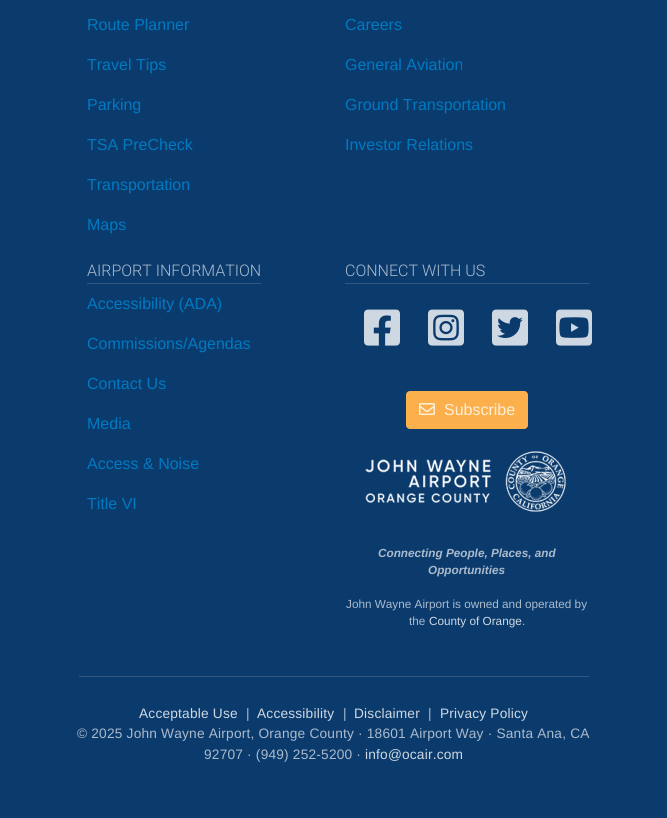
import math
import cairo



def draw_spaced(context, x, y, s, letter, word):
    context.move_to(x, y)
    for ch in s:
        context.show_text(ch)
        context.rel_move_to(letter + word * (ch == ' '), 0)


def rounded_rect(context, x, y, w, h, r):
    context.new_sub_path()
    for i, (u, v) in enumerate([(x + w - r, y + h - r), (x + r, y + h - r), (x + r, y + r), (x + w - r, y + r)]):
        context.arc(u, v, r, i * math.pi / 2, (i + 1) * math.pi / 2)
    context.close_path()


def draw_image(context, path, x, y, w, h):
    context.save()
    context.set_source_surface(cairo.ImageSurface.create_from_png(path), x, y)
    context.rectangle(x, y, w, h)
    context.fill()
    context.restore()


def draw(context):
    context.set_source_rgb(11 / 255, 59 / 255, 109 / 255)
    context.paint()
    context.set_source_rgb(48 / 255, 88 / 255, 131 / 255)
    context.rectangle(87, 283, 174, 1)
    context.fill()
    context.rectangle(345, 283, 245, 1)
    context.fill()
    draw_image(context, "images/1.png", 364, 309, 36, 37)
    draw_image(context, "images/2.png", 428, 309, 36, 37)
    draw_image(context, "images/3.png", 492, 309, 36, 37)
    draw_image(context, "images/4.png", 556, 309, 36, 37)
    context.set_source_rgb(251 / 255, 176 / 255, 76 / 255)
    rounded_rect(context, 406.5, 391.5, 121, 37, 3.5)
    context.fill_preserve()
    context.set_line_width(1)
    context.stroke()
    draw_image(context, "images/5.png", 419, 403, 16, 12)
    draw_image(context, "images/6.png", 365, 451, 201, 61)
    context.set_source_rgb(48 / 255, 88 / 255, 131 / 255)
    context.rectangle(79, 676, 510, 1)
    context.fill()
    context.select_font_face("Liberation Sans")
    context.set_font_size(16)
    context.set_source_rgb(0, 121 / 255, 193 / 255)
    context.move_to(87, 30)
    context.show_text("Route Planner")
    context.move_to(87, 70)
    context.show_text("Travel Tips")
    context.move_to(87, 110)
    context.show_text("Parking")
    context.move_to(87, 150)
    context.show_text("TSA PreCheck")
    context.move_to(87, 190)
    context.show_text("Transportation")
    context.move_to(87, 230)
    context.show_text("Maps")
    context.move_to(345, 30)
    context.show_text("Careers")
    context.move_to(345, 70)
    context.show_text("General Aviation")
    context.move_to(345, 110)
    context.show_text("Ground Transportation")
    context.move_to(345, 150)
    context.show_text("Investor Relations")
    context.select_font_face("Roboto Light")
    context.set_source_rgb(170 / 255, 186 / 255, 204 / 255)
    context.move_to(87, 276)
    context.show_text("AIRPORT INFORMATION")
    context.select_font_face("Liberation Sans")
    context.set_source_rgb(0, 121 / 255, 193 / 255)
    context.move_to(87, 309)
    context.show_text("Accessibility (ADA)")
    context.move_to(87, 349)
    context.show_text("Commissions/Agendas")
    context.move_to(87, 389)
    context.show_text("Contact Us")
    context.move_to(87, 429)
    context.show_text("Media")
    context.move_to(87, 469)
    context.show_text("Access & Noise")
    context.move_to(87, 509)
    context.show_text("Title VI")
    context.select_font_face("Roboto Light")
    context.set_source_rgb(170 / 255, 186 / 255, 204 / 255)
    context.move_to(345, 276)
    context.show_text("CONNECT WITH US")
    context.select_font_face("Liberation Sans")
    context.set_source_rgb(254 / 255, 239 / 255, 219 / 255)
    context.move_to(444, 415)
    context.show_text("Subscribe")
    context.select_font_face("Liberation Sans", cairo.FontSlant.ITALIC, cairo.FontWeight.BOLD)
    context.set_font_size(11.75)
    context.set_source_rgb(170 / 255, 186 / 255, 204 / 255)
    context.move_to(378, 557)
    context.show_text("Connecting People, Places, and")
    context.move_to(428, 574)
    context.show_text("Opportunities")
    context.select_font_face("Liberation Sans")
    context.move_to(346, 608)
    context.show_text("John Wayne Airport is owned and operated by")
    context.move_to(409, 625)
    context.show_text("the")
    context.set_source_rgb(206 / 255, 216 / 255, 226 / 255)
    context.move_to(429, 625)
    context.show_text("County of Orange")
    context.set_source_rgb(170 / 255, 186 / 255, 204 / 255)
    context.move_to(522, 625)
    context.show_text(".")
    context.set_font_size(13.7)
    context.set_source_rgb(206 / 255, 216 / 255, 226 / 255)
    draw_spaced(context, 139, 718, "Acceptable Use", 0.2, 0)
    context.set_source_rgb(170 / 255, 186 / 255, 204 / 255)
    draw_spaced(context, 246, 718, "|", 0.2, 0)
    context.set_source_rgb(206 / 255, 216 / 255, 226 / 255)
    draw_spaced(context, 257, 718, "Accessibility", 0.2, 0)
    context.set_source_rgb(170 / 255, 186 / 255, 204 / 255)
    draw_spaced(context, 343, 718, "|", 0.2, 0)
    context.set_source_rgb(206 / 255, 216 / 255, 226 / 255)
    draw_spaced(context, 354, 718, "Disclaimer", 0.2, 0)
    context.set_source_rgb(170 / 255, 186 / 255, 204 / 255)
    draw_spaced(context, 428, 718, "|", 0.2, 0)
    context.set_source_rgb(206 / 255, 216 / 255, 226 / 255)
    draw_spaced(context, 440, 718, "Privacy Policy", 0.2, 0)
    context.set_source_rgb(170 / 255, 186 / 255, 204 / 255)
    draw_spaced(context, 77, 738, "© 2025 John Wayne Airport, Orange County · 18601 Airport Way · Santa Ana, CA", 0.2, 0)
    draw_spaced(context, 204, 759, "92707 · (949) 252-5200 ·", 0.2, 0)
    context.set_source_rgb(206 / 255, 216 / 255, 226 / 255)
    draw_spaced(context, 365, 759, "info@ocair.com", 0.2, 0)


surface = cairo.ImageSurface(cairo.Format.RGB24, 667, 818)
context = cairo.Context(surface)
options = cairo.FontOptions()
options.set_hint_metrics(cairo.HintMetrics.OFF)
options.set_hint_style(cairo.HintStyle.NONE)
context.set_font_options(options)
context.set_miter_limit(4)
draw(context)
surface.write_to_png("out.png")
